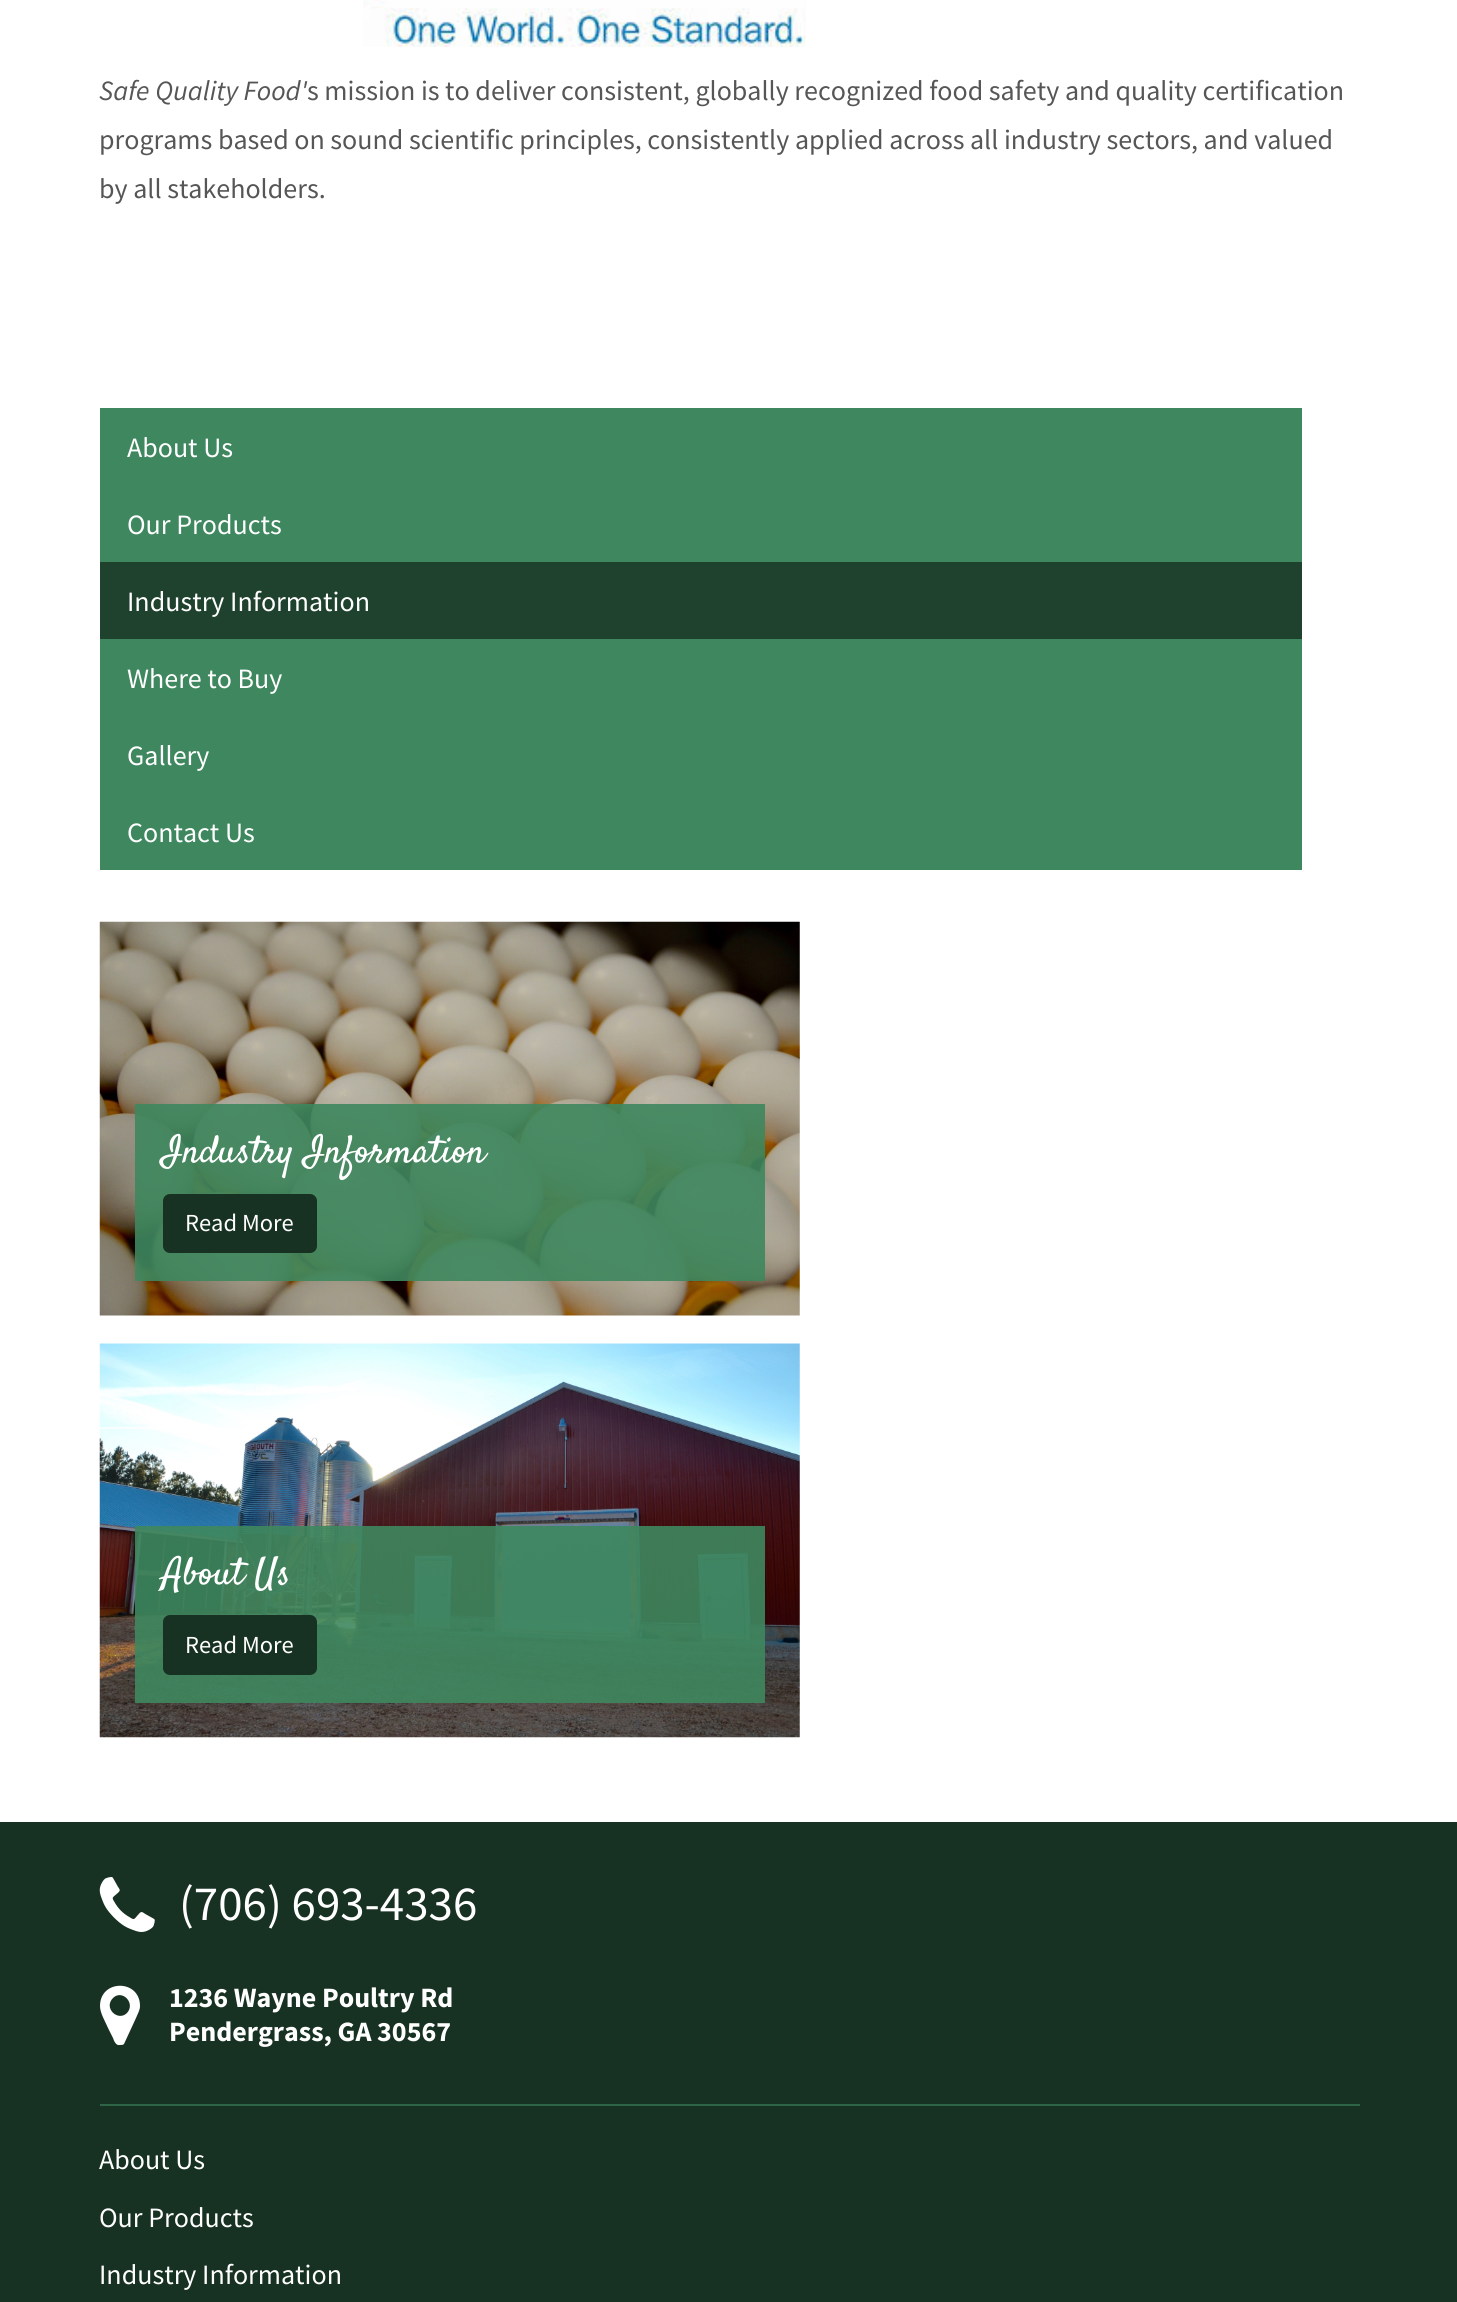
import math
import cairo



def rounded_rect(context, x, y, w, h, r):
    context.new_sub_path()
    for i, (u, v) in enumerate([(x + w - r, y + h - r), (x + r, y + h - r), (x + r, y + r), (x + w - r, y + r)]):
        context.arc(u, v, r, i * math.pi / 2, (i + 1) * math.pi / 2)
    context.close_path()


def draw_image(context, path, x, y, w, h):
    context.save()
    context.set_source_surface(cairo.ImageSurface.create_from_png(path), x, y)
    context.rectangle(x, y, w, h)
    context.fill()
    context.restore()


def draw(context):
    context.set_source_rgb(1, 1, 1)
    context.paint()
    draw_image(context, "images/1.png", 363, 0, 443, 47)
    context.set_source_rgb(63 / 255, 136 / 255, 95 / 255)
    context.rectangle(100, 408, 1202, 462)
    context.fill()
    context.set_source_rgb(31 / 255, 66 / 255, 46 / 255)
    context.rectangle(100, 562, 1202, 77)
    context.fill()
    draw_image(context, "images/2.png", 99, 921, 701, 395)
    context.set_source_rgba(63 / 255, 136 / 255, 95 / 255, 0.9)
    context.rectangle(135, 1104, 630, 177)
    context.fill()
    context.set_source_rgb(23 / 255, 49 / 255, 34 / 255)
    rounded_rect(context, 164, 1195, 152, 57, 6)
    context.fill_preserve()
    context.stroke()
    draw_image(context, "images/3.png", 99, 1343, 701, 395)
    context.set_source_rgba(63 / 255, 136 / 255, 95 / 255, 0.9)
    context.rectangle(135, 1526, 630, 177)
    context.fill()
    context.set_source_rgb(23 / 255, 49 / 255, 34 / 255)
    rounded_rect(context, 164, 1616, 152, 58, 6)
    context.fill_preserve()
    context.stroke()
    context.rectangle(0, 1822, 1457, 480)
    context.fill()
    draw_image(context, "images/4.png", 99, 1877, 56, 55)
    context.set_source_rgb(1, 1, 1)
    context.new_path()
    context.move_to(127, 2013)
    context.curve_to(136, 2003, 122, 1989, 113, 1998)
    context.curve_to(103, 2008, 118, 2022, 127, 2013)
    context.close_path()
    context.move_to(140, 2006)
    context.curve_to(140, 2010, 138, 2013, 136, 2018)
    context.line_to(124, 2044)
    context.curve_to(123, 2045, 122, 2045, 120, 2045)
    context.curve_to(116, 2046, 114, 2041, 113, 2038)
    context.line_to(108, 2028)
    context.curve_to(105, 2021, 100, 2013, 100, 2006)
    context.curve_to(100, 1979, 140, 1979, 140, 2006)
    context.close_path()
    context.fill()
    context.set_source_rgb(47 / 255, 101 / 255, 71 / 255)
    context.rectangle(100, 2104, 1260, 2)
    context.fill()
    context.select_font_face("Source Sans Pro", cairo.FontSlant.ITALIC)
    context.set_font_size(28)
    context.set_source_rgb(86 / 255, 86 / 255, 86 / 255)
    context.move_to(99, 100)
    context.show_text("Safe Quality Food'")
    context.select_font_face("Source Sans Pro")
    context.move_to(307, 100)
    context.show_text("s mission is to deliver consistent, globally recognized food safety and quality certification")
    context.move_to(99, 149)
    context.show_text("programs based on sound scientific principles, consistently applied across all industry sectors, and valued")
    context.move_to(99, 198)
    context.show_text("by all stakeholders.")
    context.set_source_rgb(1, 1, 1)
    context.move_to(127, 457)
    context.show_text("About Us")
    context.move_to(127, 534)
    context.show_text("Our Products")
    context.move_to(127, 611)
    context.show_text("Industry Information")
    context.move_to(127, 688)
    context.show_text("Where to Buy")
    context.move_to(127, 765)
    context.show_text("Gallery")
    context.move_to(127, 842)
    context.show_text("Contact Us")
    context.select_font_face("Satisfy")
    context.set_font_size(38.5)
    context.move_to(162, 1162)
    context.show_text("Industry Information")
    context.select_font_face("Source Sans Pro")
    context.set_font_size(24.5)
    context.move_to(185, 1231)
    context.show_text("Read More")
    context.select_font_face("Satisfy")
    context.set_font_size(38.5)
    context.move_to(162, 1584)
    context.show_text("About Us")
    context.select_font_face("Source Sans Pro")
    context.set_font_size(24.5)
    context.move_to(185, 1653)
    context.show_text("Read More")
    context.set_font_size(49)
    context.move_to(179, 1920)
    context.show_text("(706) 693-4336")
    context.select_font_face("Source Sans Pro", cairo.FontSlant.NORMAL, cairo.FontWeight.BOLD)
    context.set_font_size(28)
    context.move_to(169, 2007)
    context.show_text("1236 Wayne Poultry Rd")
    context.move_to(169, 2041)
    context.show_text("Pendergrass, GA 30567")
    context.select_font_face("Source Sans Pro")
    context.move_to(99, 2169)
    context.show_text("About Us")
    context.move_to(99, 2227)
    context.show_text("Our Products")
    context.move_to(99, 2284)
    context.show_text("Industry Information")


surface = cairo.ImageSurface(cairo.Format.RGB24, 1457, 2302)
context = cairo.Context(surface)
options = cairo.FontOptions()
options.set_hint_metrics(cairo.HintMetrics.OFF)
options.set_hint_style(cairo.HintStyle.NONE)
context.set_font_options(options)
context.set_miter_limit(4)
draw(context)
surface.write_to_png("out.png")
